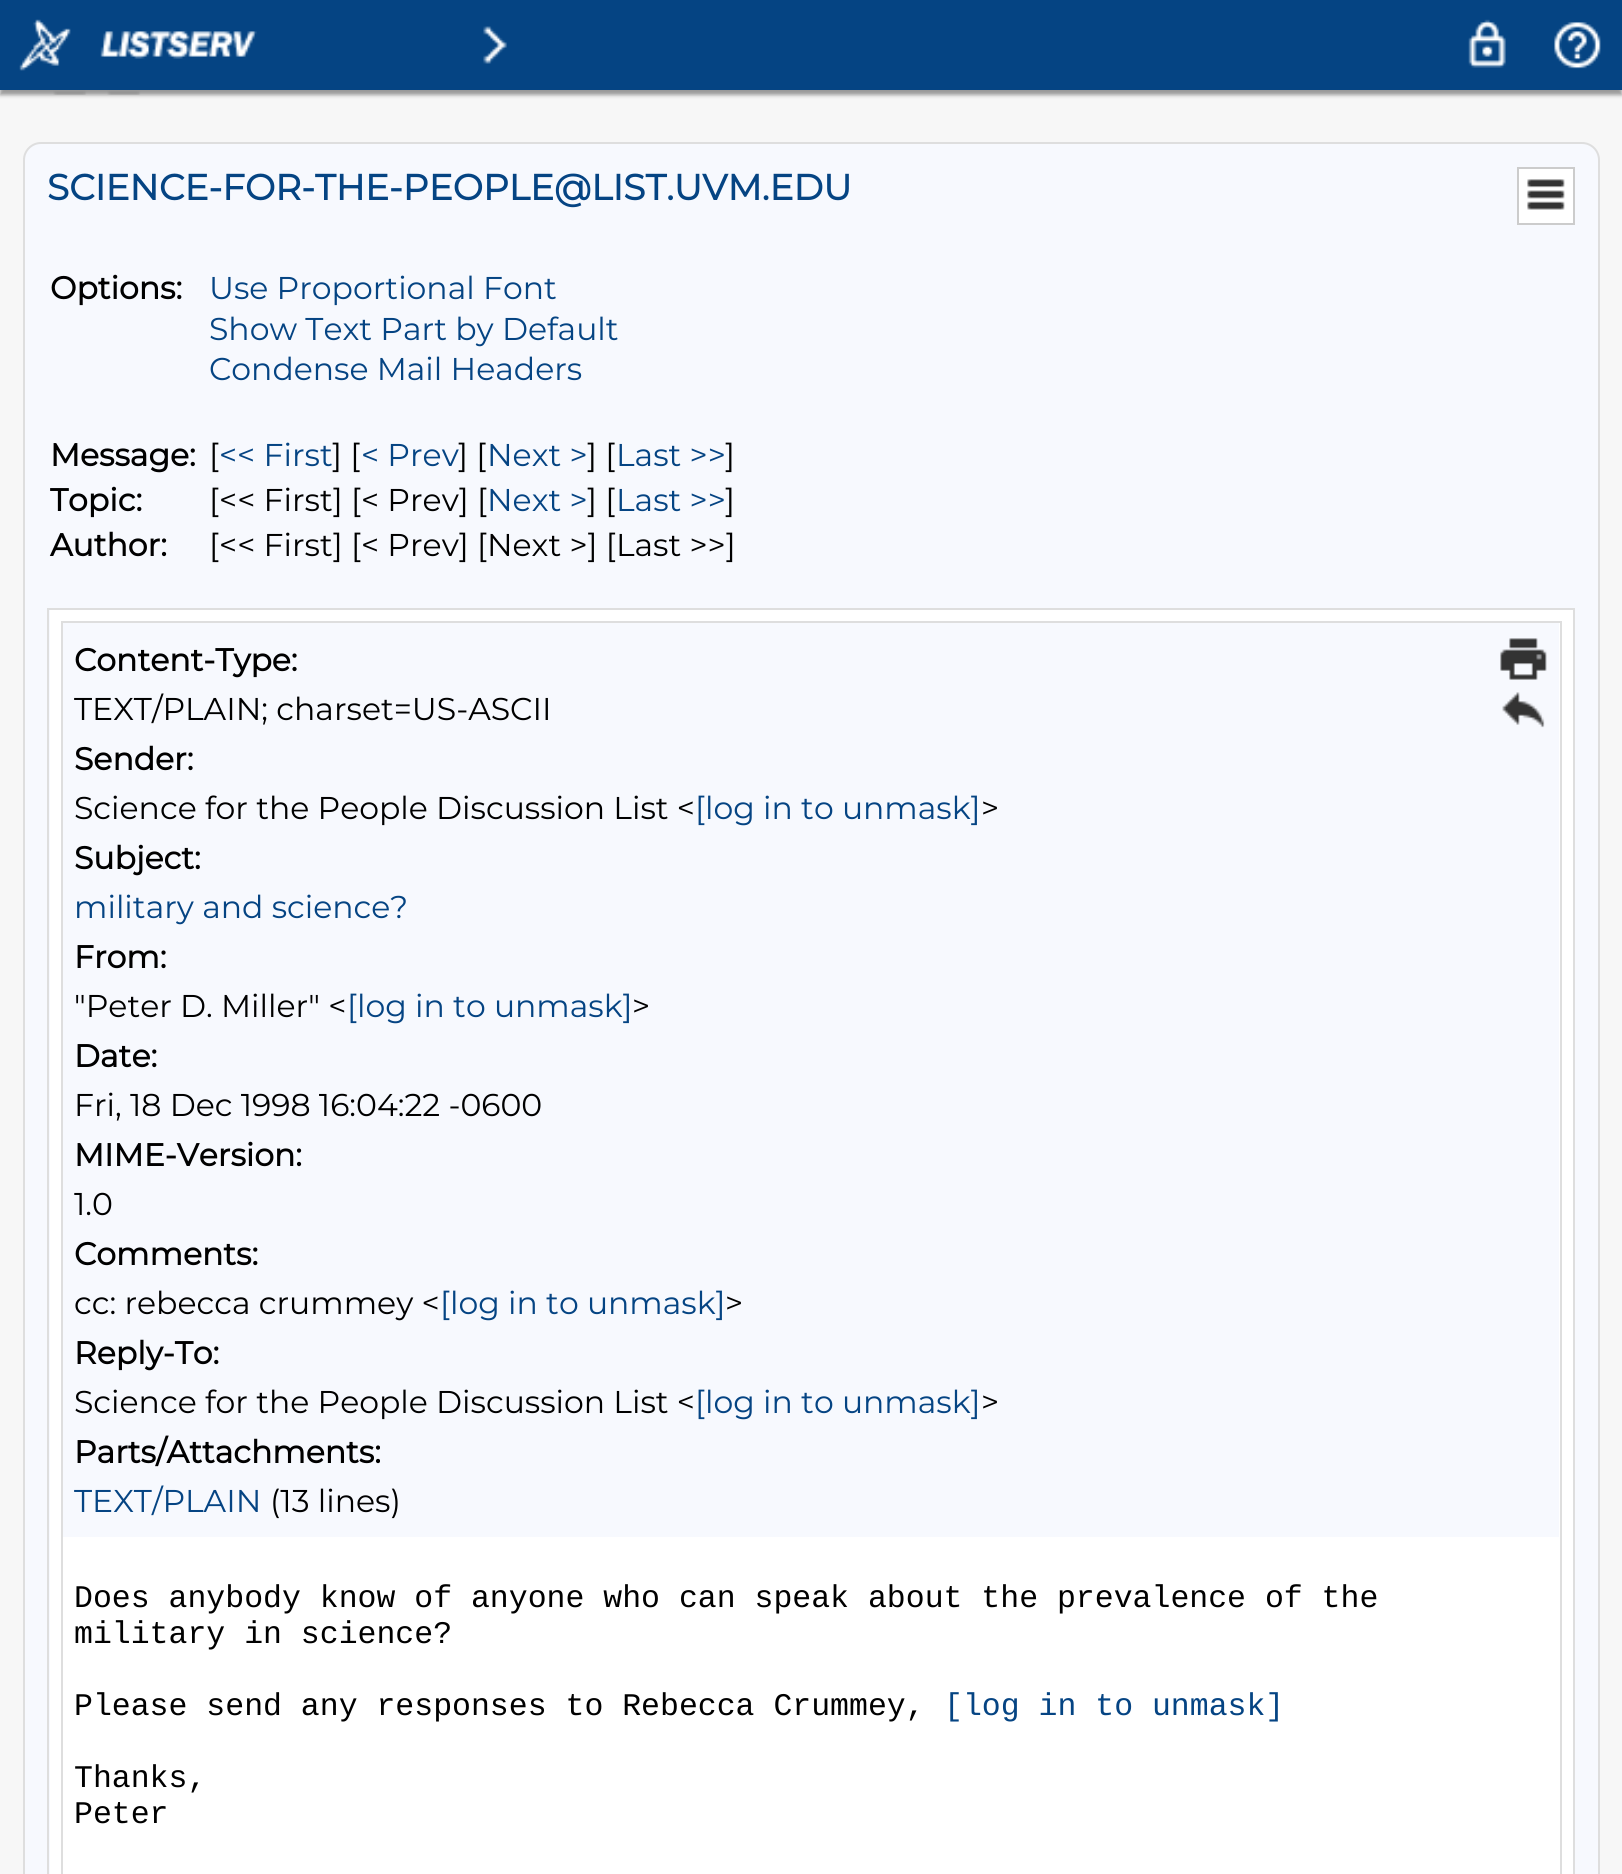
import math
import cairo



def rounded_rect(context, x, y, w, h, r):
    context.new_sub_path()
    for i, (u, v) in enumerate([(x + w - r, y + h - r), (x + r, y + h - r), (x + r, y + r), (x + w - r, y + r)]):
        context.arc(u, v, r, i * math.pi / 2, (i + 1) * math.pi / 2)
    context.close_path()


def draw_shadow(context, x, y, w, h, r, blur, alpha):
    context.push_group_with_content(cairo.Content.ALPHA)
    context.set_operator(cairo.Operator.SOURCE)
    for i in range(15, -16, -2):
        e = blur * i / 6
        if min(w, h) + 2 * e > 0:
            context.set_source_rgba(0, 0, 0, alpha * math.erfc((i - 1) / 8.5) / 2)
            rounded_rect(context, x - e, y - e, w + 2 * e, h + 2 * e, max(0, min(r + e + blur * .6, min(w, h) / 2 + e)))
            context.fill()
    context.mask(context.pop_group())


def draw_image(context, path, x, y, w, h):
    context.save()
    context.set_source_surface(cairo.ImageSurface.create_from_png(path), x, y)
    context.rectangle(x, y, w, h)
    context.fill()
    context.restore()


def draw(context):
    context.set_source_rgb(247 / 255, 247 / 255, 247 / 255)
    context.paint()
    draw_image(context, "images/6.png", 53, 90, 88, 5)
    context.set_source_rgb(153 / 255, 153 / 255, 153 / 255)
    draw_shadow(context, 0, 5, 1622, 90, 0, 2, 1)
    context.set_source_rgb(5 / 255, 68 / 255, 131 / 255)
    context.rectangle(0, 0, 1622, 90)
    context.fill()
    draw_image(context, "images/1.png", 19, 19, 52, 52)
    draw_image(context, "images/2.png", 100, 31, 157, 28)
    draw_image(context, "images/3.png", 483, 26, 24, 38)
    draw_image(context, "images/4.png", 1468, 19, 38, 49)
    draw_image(context, "images/5.png", 1554, 22, 47, 47)
    context.set_source_rgb(247 / 255, 249 / 255, 254 / 255)
    rounded_rect(context, 24, 143, 1575, 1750, 17)
    context.fill_preserve()
    context.set_source_rgb(222 / 255, 222 / 255, 222 / 255)
    context.stroke()
    context.set_source_rgb(1, 1, 1)
    context.rectangle(1518, 168, 56, 56)
    context.fill_preserve()
    context.set_source_rgb(204 / 255, 204 / 255, 204 / 255)
    context.stroke()
    draw_image(context, "images/7.png", 1527, 179, 38, 31)
    context.rectangle(48, 609, 1526, 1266)
    context.set_source_rgb(222 / 255, 222 / 255, 222 / 255)
    context.stroke()
    context.set_source_rgb(1, 1, 1)
    context.rectangle(50, 610, 1523, 1264)
    context.fill()
    context.rectangle(62, 622, 1499, 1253)
    context.set_source_rgb(222 / 255, 222 / 255, 222 / 255)
    context.stroke()
    context.set_source_rgb(247 / 255, 249 / 255, 254 / 255)
    context.rectangle(63, 623, 1496, 914)
    context.fill()
    draw_image(context, "images/8.png", 1500, 638, 47, 42)
    draw_image(context, "images/9.png", 1502, 692, 43, 36)
    context.select_font_face("Montserrat", cairo.FontSlant.NORMAL, cairo.FontWeight.BOLD)
    context.set_font_size(36)
    context.set_source_rgb(5 / 255, 68 / 255, 131 / 255)
    context.move_to(47, 200)
    context.show_text("SCIENCE-FOR-THE-PEOPLE@LIST.UVM.EDU")
    context.set_font_size(31.5)
    context.set_source_rgb(0, 0, 0)
    context.move_to(50, 299)
    context.show_text("Options:")
    context.select_font_face("Montserrat Thin")
    context.set_source_rgb(5 / 255, 68 / 255, 131 / 255)
    context.move_to(209, 299)
    context.show_text("Use Proportional Font")
    context.move_to(209, 340)
    context.show_text("Show Text Part by Default")
    context.move_to(209, 380)
    context.show_text("Condense Mail Headers")
    context.select_font_face("Montserrat", cairo.FontSlant.NORMAL, cairo.FontWeight.BOLD)
    context.set_source_rgb(0, 0, 0)
    context.move_to(50, 466)
    context.show_text("Message:")
    context.select_font_face("Montserrat Thin")
    context.move_to(209, 466)
    context.show_text("[")
    context.set_source_rgb(5 / 255, 68 / 255, 131 / 255)
    context.move_to(219, 466)
    context.show_text("<< First")
    context.set_source_rgb(0, 0, 0)
    context.move_to(332, 466)
    context.show_text("] [")
    context.set_source_rgb(5 / 255, 68 / 255, 131 / 255)
    context.move_to(361, 466)
    context.show_text("< Prev")
    context.set_source_rgb(0, 0, 0)
    context.move_to(458, 466)
    context.show_text("] [")
    context.set_source_rgb(5 / 255, 68 / 255, 131 / 255)
    context.move_to(487, 466)
    context.show_text("Next >")
    context.set_source_rgb(0, 0, 0)
    context.move_to(587, 466)
    context.show_text("] [")
    context.set_source_rgb(5 / 255, 68 / 255, 131 / 255)
    context.move_to(616, 466)
    context.show_text("Last >>")
    context.set_source_rgb(0, 0, 0)
    context.move_to(725, 466)
    context.show_text("]")
    context.select_font_face("Montserrat", cairo.FontSlant.NORMAL, cairo.FontWeight.BOLD)
    context.move_to(50, 511)
    context.show_text("Topic:")
    context.select_font_face("Montserrat Thin")
    context.move_to(209, 511)
    context.show_text("[<< First] [< Prev] [")
    context.set_source_rgb(5 / 255, 68 / 255, 131 / 255)
    context.move_to(487, 511)
    context.show_text("Next >")
    context.set_source_rgb(0, 0, 0)
    context.move_to(587, 511)
    context.show_text("] [")
    context.set_source_rgb(5 / 255, 68 / 255, 131 / 255)
    context.move_to(616, 511)
    context.show_text("Last >>")
    context.set_source_rgb(0, 0, 0)
    context.move_to(725, 511)
    context.show_text("]")
    context.select_font_face("Montserrat", cairo.FontSlant.NORMAL, cairo.FontWeight.BOLD)
    context.move_to(50, 556)
    context.show_text("Author:")
    context.select_font_face("Montserrat Thin")
    context.move_to(209, 556)
    context.show_text("[<< First] [< Prev] [Next >] [Last >>]")
    context.select_font_face("Montserrat", cairo.FontSlant.NORMAL, cairo.FontWeight.BOLD)
    context.move_to(74, 671)
    context.show_text("Content-Type:")
    context.select_font_face("Montserrat Thin")
    context.move_to(74, 720)
    context.show_text("TEXT/PLAIN; charset=US-ASCII")
    context.select_font_face("Montserrat", cairo.FontSlant.NORMAL, cairo.FontWeight.BOLD)
    context.move_to(74, 770)
    context.show_text("Sender:")
    context.select_font_face("Montserrat Thin")
    context.move_to(74, 819)
    context.show_text("Science for the People Discussion List <")
    context.set_source_rgb(5 / 255, 68 / 255, 131 / 255)
    context.move_to(695, 819)
    context.show_text("[log in to unmask]")
    context.set_source_rgb(0, 0, 0)
    context.move_to(981, 819)
    context.show_text(">")
    context.select_font_face("Montserrat", cairo.FontSlant.NORMAL, cairo.FontWeight.BOLD)
    context.move_to(74, 869)
    context.show_text("Subject:")
    context.select_font_face("Montserrat Thin")
    context.set_source_rgb(5 / 255, 68 / 255, 131 / 255)
    context.move_to(74, 918)
    context.show_text("military and science?")
    context.select_font_face("Montserrat", cairo.FontSlant.NORMAL, cairo.FontWeight.BOLD)
    context.set_source_rgb(0, 0, 0)
    context.move_to(74, 968)
    context.show_text("From:")
    context.select_font_face("Montserrat Thin")
    context.move_to(74, 1017)
    context.show_text("\"Peter D. Miller\" <")
    context.set_source_rgb(5 / 255, 68 / 255, 131 / 255)
    context.move_to(347, 1017)
    context.show_text("[log in to unmask]")
    context.set_source_rgb(0, 0, 0)
    context.move_to(632, 1017)
    context.show_text(">")
    context.select_font_face("Montserrat", cairo.FontSlant.NORMAL, cairo.FontWeight.BOLD)
    context.move_to(74, 1067)
    context.show_text("Date:")
    context.select_font_face("Montserrat Thin")
    context.move_to(74, 1116)
    context.show_text("Fri, 18 Dec 1998 16:04:22 -0600")
    context.select_font_face("Montserrat", cairo.FontSlant.NORMAL, cairo.FontWeight.BOLD)
    context.move_to(74, 1166)
    context.show_text("MIME-Version:")
    context.select_font_face("Montserrat Thin")
    context.move_to(74, 1215)
    context.show_text("1.0")
    context.select_font_face("Montserrat", cairo.FontSlant.NORMAL, cairo.FontWeight.BOLD)
    context.move_to(74, 1265)
    context.show_text("Comments:")
    context.select_font_face("Montserrat Thin")
    context.move_to(74, 1314)
    context.show_text("cc: rebecca crummey <")
    context.set_source_rgb(5 / 255, 68 / 255, 131 / 255)
    context.move_to(440, 1314)
    context.show_text("[log in to unmask]")
    context.set_source_rgb(0, 0, 0)
    context.move_to(725, 1314)
    context.show_text(">")
    context.select_font_face("Montserrat", cairo.FontSlant.NORMAL, cairo.FontWeight.BOLD)
    context.move_to(74, 1364)
    context.show_text("Reply-To:")
    context.select_font_face("Montserrat Thin")
    context.move_to(74, 1413)
    context.show_text("Science for the People Discussion List <")
    context.set_source_rgb(5 / 255, 68 / 255, 131 / 255)
    context.move_to(695, 1413)
    context.show_text("[log in to unmask]")
    context.set_source_rgb(0, 0, 0)
    context.move_to(981, 1413)
    context.show_text(">")
    context.select_font_face("Montserrat", cairo.FontSlant.NORMAL, cairo.FontWeight.BOLD)
    context.move_to(74, 1463)
    context.show_text("Parts/Attachments:")
    context.select_font_face("Montserrat Thin")
    context.set_source_rgb(5 / 255, 68 / 255, 131 / 255)
    context.move_to(74, 1512)
    context.show_text("TEXT/PLAIN")
    context.set_source_rgb(0, 0, 0)
    context.move_to(270, 1512)
    context.show_text("(13 lines)")
    context.select_font_face("Liberation Mono")
    context.move_to(74, 1607)
    context.show_text("Does anybody know of anyone who can speak about the prevalence of the")
    context.move_to(74, 1643)
    context.show_text("military in science?")
    context.move_to(74, 1715)
    context.show_text("Please send any responses to Rebecca Crummey,")
    context.set_source_rgb(5 / 255, 68 / 255, 131 / 255)
    context.move_to(944, 1715)
    context.show_text("[log in to unmask]")
    context.set_source_rgb(0, 0, 0)
    context.move_to(74, 1787)
    context.show_text("Thanks,")
    context.move_to(74, 1823)
    context.show_text("Peter")


surface = cairo.ImageSurface(cairo.Format.RGB24, 1622, 1874)
context = cairo.Context(surface)
options = cairo.FontOptions()
options.set_hint_metrics(cairo.HintMetrics.OFF)
options.set_hint_style(cairo.HintStyle.NONE)
context.set_font_options(options)
context.set_miter_limit(4)
draw(context)
surface.write_to_png("out.png")
